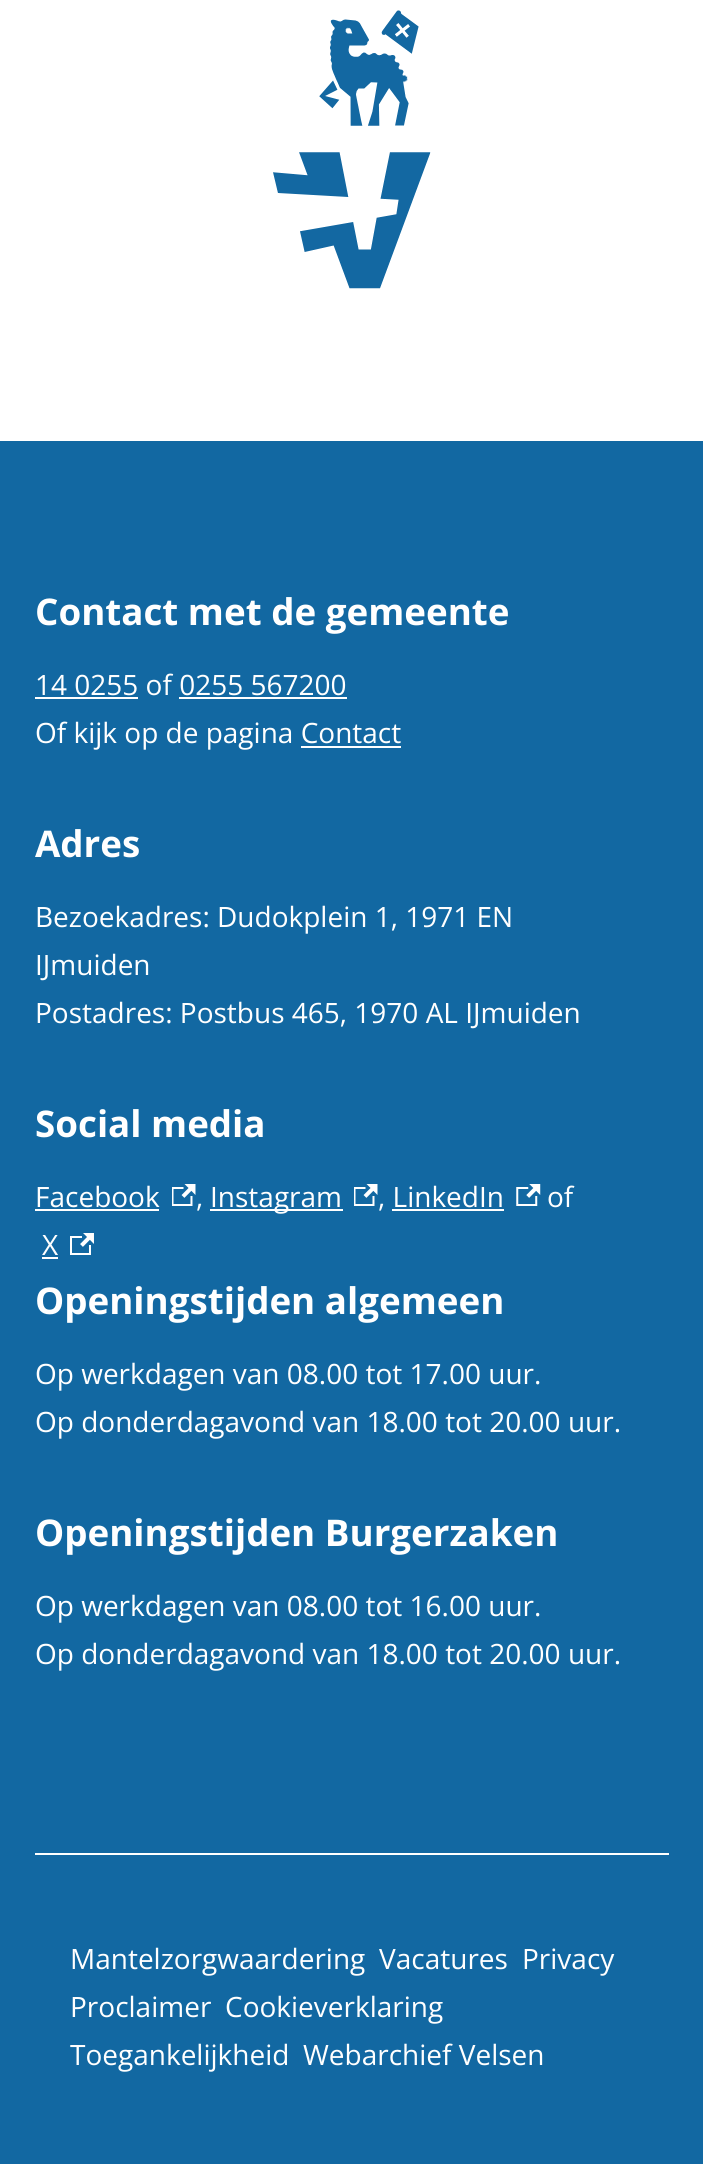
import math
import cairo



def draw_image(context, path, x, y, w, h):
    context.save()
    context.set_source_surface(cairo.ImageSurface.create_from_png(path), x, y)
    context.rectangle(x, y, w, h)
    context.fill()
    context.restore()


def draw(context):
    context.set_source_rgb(1, 1, 1)
    context.paint()
    draw_image(context, "images/1.png", 273, 10, 158, 279)
    context.set_source_rgb(18 / 255, 104 / 255, 162 / 255)
    context.rectangle(0, 441, 703, 1723)
    context.fill()
    context.set_source_rgb(1, 1, 1)
    context.rectangle(35, 697, 103, 2)
    context.fill()
    context.rectangle(179, 697, 168, 2)
    context.fill()
    context.rectangle(301, 746, 100, 2)
    context.fill()
    context.rectangle(35, 1209, 124, 2)
    context.fill()
    draw_image(context, "images/2.png", 172, 1184, 24, 22)
    draw_image(context, "images/3.png", 516, 1184, 25, 22)
    context.rectangle(392, 1209, 112, 2)
    context.fill()
    context.rectangle(210, 1209, 133, 2)
    context.fill()
    draw_image(context, "images/2.png", 354, 1184, 24, 22)
    context.rectangle(42, 1257, 16, 2)
    context.fill()
    draw_image(context, "images/4.png", 70, 1233, 24, 22)
    context.rectangle(35, 1853, 634, 2)
    context.fill()
    context.select_font_face("Open Sans", cairo.FontSlant.NORMAL, cairo.FontWeight.BOLD)
    context.set_font_size(36.75)
    context.move_to(35, 625)
    context.show_text("Contact met de gemeente")
    context.select_font_face("Open Sans")
    context.set_font_size(28)
    context.move_to(35, 695)
    context.show_text("14 0255 of 0255 567200")
    context.move_to(35, 743)
    context.show_text("Of kijk op de pagina Contact")
    context.select_font_face("Open Sans", cairo.FontSlant.NORMAL, cairo.FontWeight.BOLD)
    context.set_font_size(36.75)
    context.move_to(35, 857)
    context.show_text("Adres")
    context.select_font_face("Open Sans")
    context.set_font_size(28)
    context.move_to(35, 927)
    context.show_text("Bezoekadres: Dudokplein 1, 1971 EN")
    context.move_to(35, 975)
    context.show_text("IJmuiden")
    context.move_to(35, 1023)
    context.show_text("Postadres: Postbus 465, 1970 AL IJmuiden")
    context.select_font_face("Open Sans", cairo.FontSlant.NORMAL, cairo.FontWeight.BOLD)
    context.set_font_size(36.75)
    context.move_to(35, 1137)
    context.show_text("Social media")
    context.select_font_face("Open Sans")
    context.set_font_size(28)
    context.move_to(35, 1207)
    context.show_text("Facebook")
    context.move_to(196, 1207)
    context.show_text(",")
    context.move_to(210, 1207)
    context.show_text("Instagram")
    context.move_to(378, 1207)
    context.show_text(", LinkedIn")
    context.move_to(547, 1207)
    context.show_text("of")
    context.move_to(42, 1255)
    context.show_text("X")
    context.select_font_face("Open Sans", cairo.FontSlant.NORMAL, cairo.FontWeight.BOLD)
    context.set_font_size(36.75)
    context.move_to(35, 1314)
    context.show_text("Openingstijden algemeen")
    context.select_font_face("Open Sans")
    context.set_font_size(28)
    context.move_to(35, 1384)
    context.show_text("Op werkdagen van 08.00 tot 17.00 uur.")
    context.move_to(35, 1432)
    context.show_text("Op donderdagavond van 18.00 tot 20.00 uur.")
    context.select_font_face("Open Sans", cairo.FontSlant.NORMAL, cairo.FontWeight.BOLD)
    context.set_font_size(36.75)
    context.move_to(35, 1546)
    context.show_text("Openingstijden Burgerzaken")
    context.select_font_face("Open Sans")
    context.set_font_size(28)
    context.move_to(35, 1616)
    context.show_text("Op werkdagen van 08.00 tot 16.00 uur.")
    context.move_to(35, 1664)
    context.show_text("Op donderdagavond van 18.00 tot 20.00 uur.")
    context.move_to(70, 1969)
    context.show_text("Mantelzorgwaardering")
    context.move_to(379, 1969)
    context.show_text("Vacatures")
    context.move_to(522, 1969)
    context.show_text("Privacy")
    context.move_to(70, 2017)
    context.show_text("Proclaimer")
    context.move_to(225, 2017)
    context.show_text("Cookieverklaring")
    context.move_to(70, 2065)
    context.show_text("Toegankelijkheid")
    context.move_to(303, 2065)
    context.show_text("Webarchief Velsen")


surface = cairo.ImageSurface(cairo.Format.RGB24, 703, 2164)
context = cairo.Context(surface)
options = cairo.FontOptions()
options.set_hint_metrics(cairo.HintMetrics.OFF)
options.set_hint_style(cairo.HintStyle.NONE)
context.set_font_options(options)
context.set_miter_limit(4)
draw(context)
surface.write_to_png("out.png")
